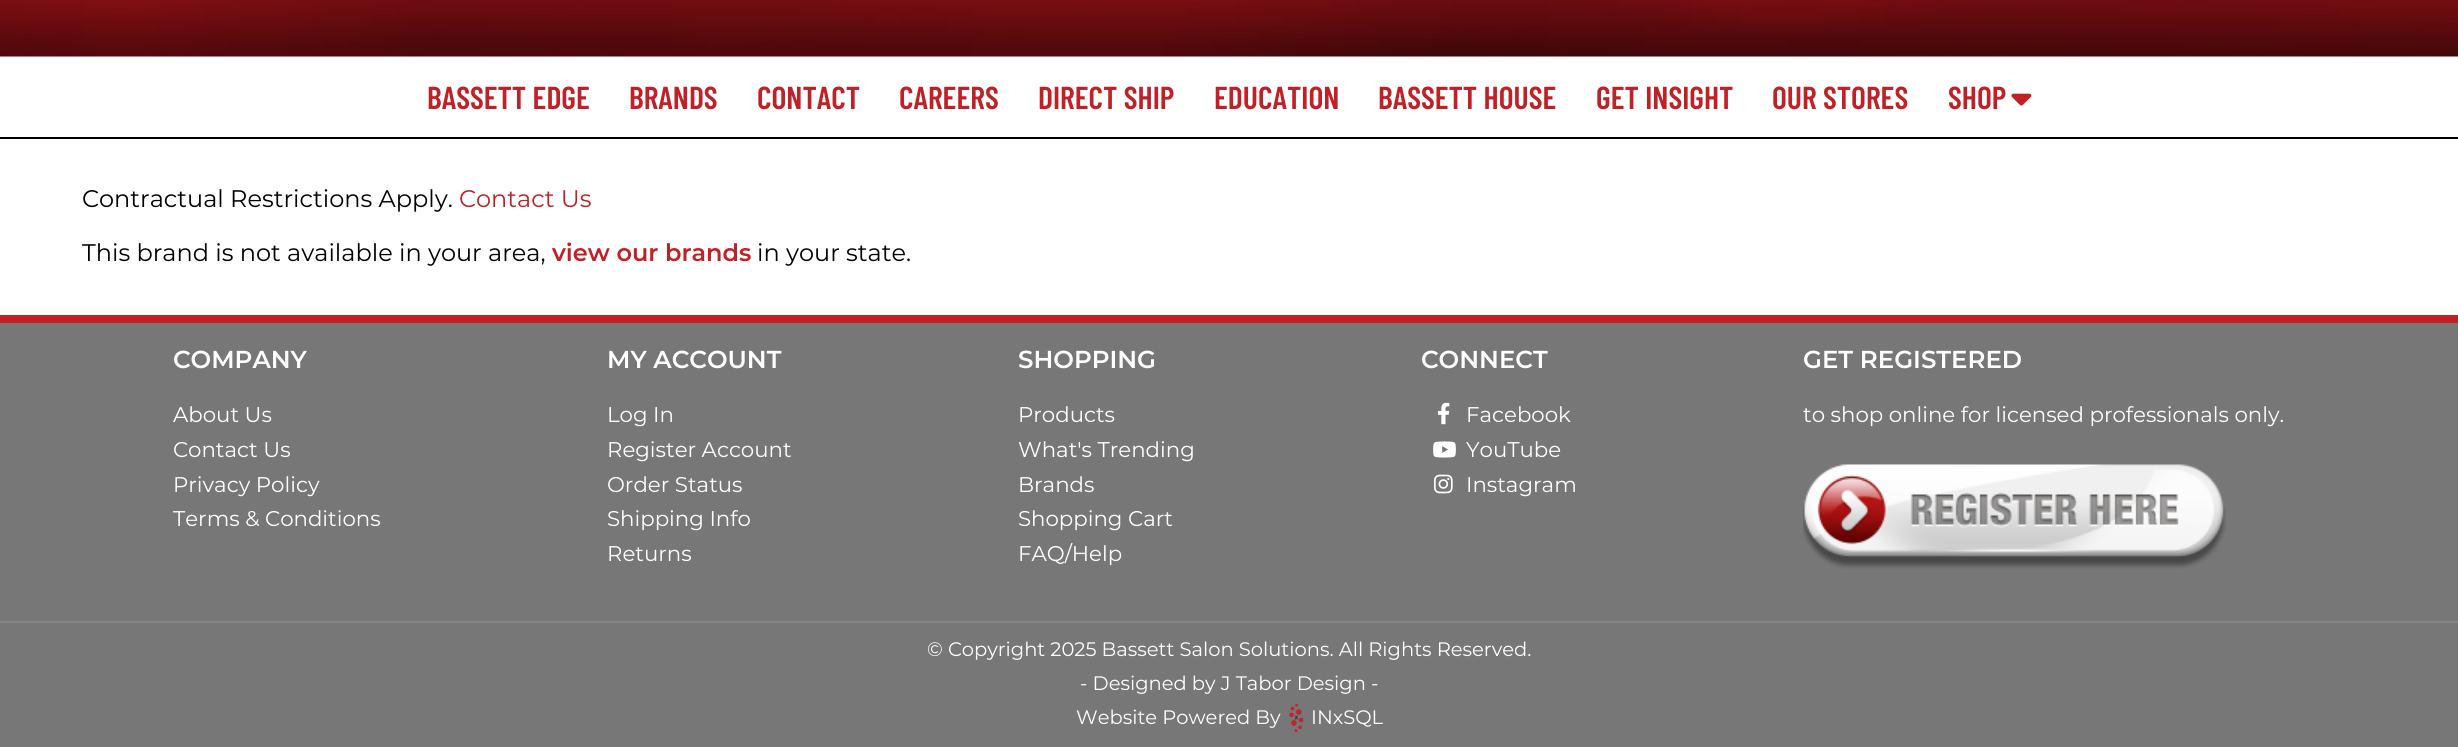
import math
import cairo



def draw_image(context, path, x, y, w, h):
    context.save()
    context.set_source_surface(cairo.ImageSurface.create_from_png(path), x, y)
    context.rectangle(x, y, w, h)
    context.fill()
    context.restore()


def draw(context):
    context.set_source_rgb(1, 1, 1)
    context.paint()
    draw_image(context, "images/1.png", 0, 0, 2458, 57)
    context.set_source_rgb(0, 0, 0)
    context.rectangle(0, 137, 2458, 2)
    context.fill()
    draw_image(context, "images/2.png", 2011, 93, 21, 13)
    context.set_source_rgb(119 / 255, 119 / 255, 119 / 255)
    context.rectangle(0, 323, 2458, 424)
    context.fill()
    context.set_source_rgb(193 / 255, 32 / 255, 38 / 255)
    context.rectangle(0, 315, 2458, 8)
    context.fill()
    draw_image(context, "images/3.png", 1437, 402, 13, 23)
    draw_image(context, "images/4.png", 1433, 441, 23, 17)
    draw_image(context, "images/5.png", 1434, 474, 19, 20)
    draw_image(context, "images/6.png", 1803, 464, 423, 105)
    context.set_source_rgb(133 / 255, 133 / 255, 133 / 255)
    context.rectangle(0, 621, 2458, 2)
    context.fill()
    draw_image(context, "images/7.png", 1289, 703, 15, 30)
    context.select_font_face("Barlow Condensed SemiBold")
    context.set_font_size(31.75)
    context.set_source_rgb(193 / 255, 32 / 255, 38 / 255)
    context.move_to(427, 109)
    context.show_text("BASSETT EDGE")
    context.move_to(629, 109)
    context.show_text("BRANDS")
    context.move_to(757, 109)
    context.show_text("CONTACT")
    context.move_to(899, 109)
    context.show_text("CAREERS")
    context.move_to(1038, 109)
    context.show_text("DIRECT SHIP")
    context.move_to(1214, 109)
    context.show_text("EDUCATION")
    context.move_to(1378, 109)
    context.show_text("BASSETT HOUSE")
    context.move_to(1596, 109)
    context.show_text("GET INSIGHT")
    context.move_to(1772, 109)
    context.show_text("OUR STORES")
    context.move_to(1948, 109)
    context.show_text("SHOP")
    context.select_font_face("Montserrat")
    context.set_font_size(24)
    context.set_source_rgb(0, 0, 0)
    context.move_to(82, 207)
    context.show_text("Contractual Restrictions Apply.")
    context.set_source_rgb(193 / 255, 32 / 255, 38 / 255)
    context.move_to(459, 207)
    context.show_text("Contact Us")
    context.set_source_rgb(0, 0, 0)
    context.move_to(82, 261)
    context.show_text("This brand is not available in your area,")
    context.select_font_face("Montserrat SemiBold")
    context.set_source_rgb(193 / 255, 32 / 255, 38 / 255)
    context.move_to(552, 261)
    context.show_text("view our brands")
    context.select_font_face("Montserrat")
    context.set_source_rgb(0, 0, 0)
    context.move_to(757, 261)
    context.show_text("in your state.")
    context.select_font_face("Montserrat SemiBold")
    context.set_font_size(24.5)
    context.set_source_rgb(1, 1, 1)
    context.move_to(173, 368)
    context.show_text("COMPANY")
    context.select_font_face("Montserrat")
    context.set_font_size(21.3)
    context.move_to(173, 422)
    context.show_text("About Us")
    context.move_to(173, 457)
    context.show_text("Contact Us")
    context.move_to(173, 492)
    context.show_text("Privacy Policy")
    context.move_to(173, 526)
    context.show_text("Terms & Conditions")
    context.select_font_face("Montserrat SemiBold")
    context.set_font_size(24.5)
    context.move_to(607, 368)
    context.show_text("MY ACCOUNT")
    context.select_font_face("Montserrat")
    context.set_font_size(21.3)
    context.move_to(607, 422)
    context.show_text("Log In")
    context.move_to(607, 457)
    context.show_text("Register Account")
    context.move_to(607, 492)
    context.show_text("Order Status")
    context.move_to(607, 526)
    context.show_text("Shipping Info")
    context.move_to(607, 561)
    context.show_text("Returns")
    context.select_font_face("Montserrat SemiBold")
    context.set_font_size(24.5)
    context.move_to(1018, 368)
    context.show_text("SHOPPING")
    context.select_font_face("Montserrat")
    context.set_font_size(21.3)
    context.move_to(1018, 422)
    context.show_text("Products")
    context.move_to(1018, 457)
    context.show_text("What's Trending")
    context.move_to(1018, 492)
    context.show_text("Brands")
    context.move_to(1018, 526)
    context.show_text("Shopping Cart")
    context.move_to(1018, 561)
    context.show_text("FAQ/Help")
    context.select_font_face("Montserrat SemiBold")
    context.set_font_size(24.5)
    context.move_to(1421, 368)
    context.show_text("CONNECT")
    context.select_font_face("Montserrat")
    context.set_font_size(21.3)
    context.move_to(1466, 422)
    context.show_text("Facebook")
    context.move_to(1466, 457)
    context.show_text("YouTube")
    context.move_to(1466, 492)
    context.show_text("Instagram")
    context.select_font_face("Montserrat SemiBold")
    context.set_font_size(24.5)
    context.move_to(1803, 368)
    context.show_text("GET REGISTERED")
    context.select_font_face("Montserrat")
    context.set_font_size(21.3)
    context.move_to(1803, 422)
    context.show_text("to shop online for licensed professionals only.")
    context.set_font_size(19.5)
    context.move_to(927, 656)
    context.show_text("© Copyright 2025 Bassett Salon Solutions. All Rights Reserved.")
    context.move_to(1080, 690)
    context.show_text("- Designed by J Tabor Design -")
    context.move_to(1076, 724)
    context.show_text("Website Powered By")
    context.move_to(1311, 724)
    context.show_text("INxSQL")


surface = cairo.ImageSurface(cairo.Format.RGB24, 2458, 747)
context = cairo.Context(surface)
options = cairo.FontOptions()
options.set_hint_metrics(cairo.HintMetrics.OFF)
options.set_hint_style(cairo.HintStyle.NONE)
context.set_font_options(options)
context.set_miter_limit(4)
draw(context)
surface.write_to_png("out.png")
